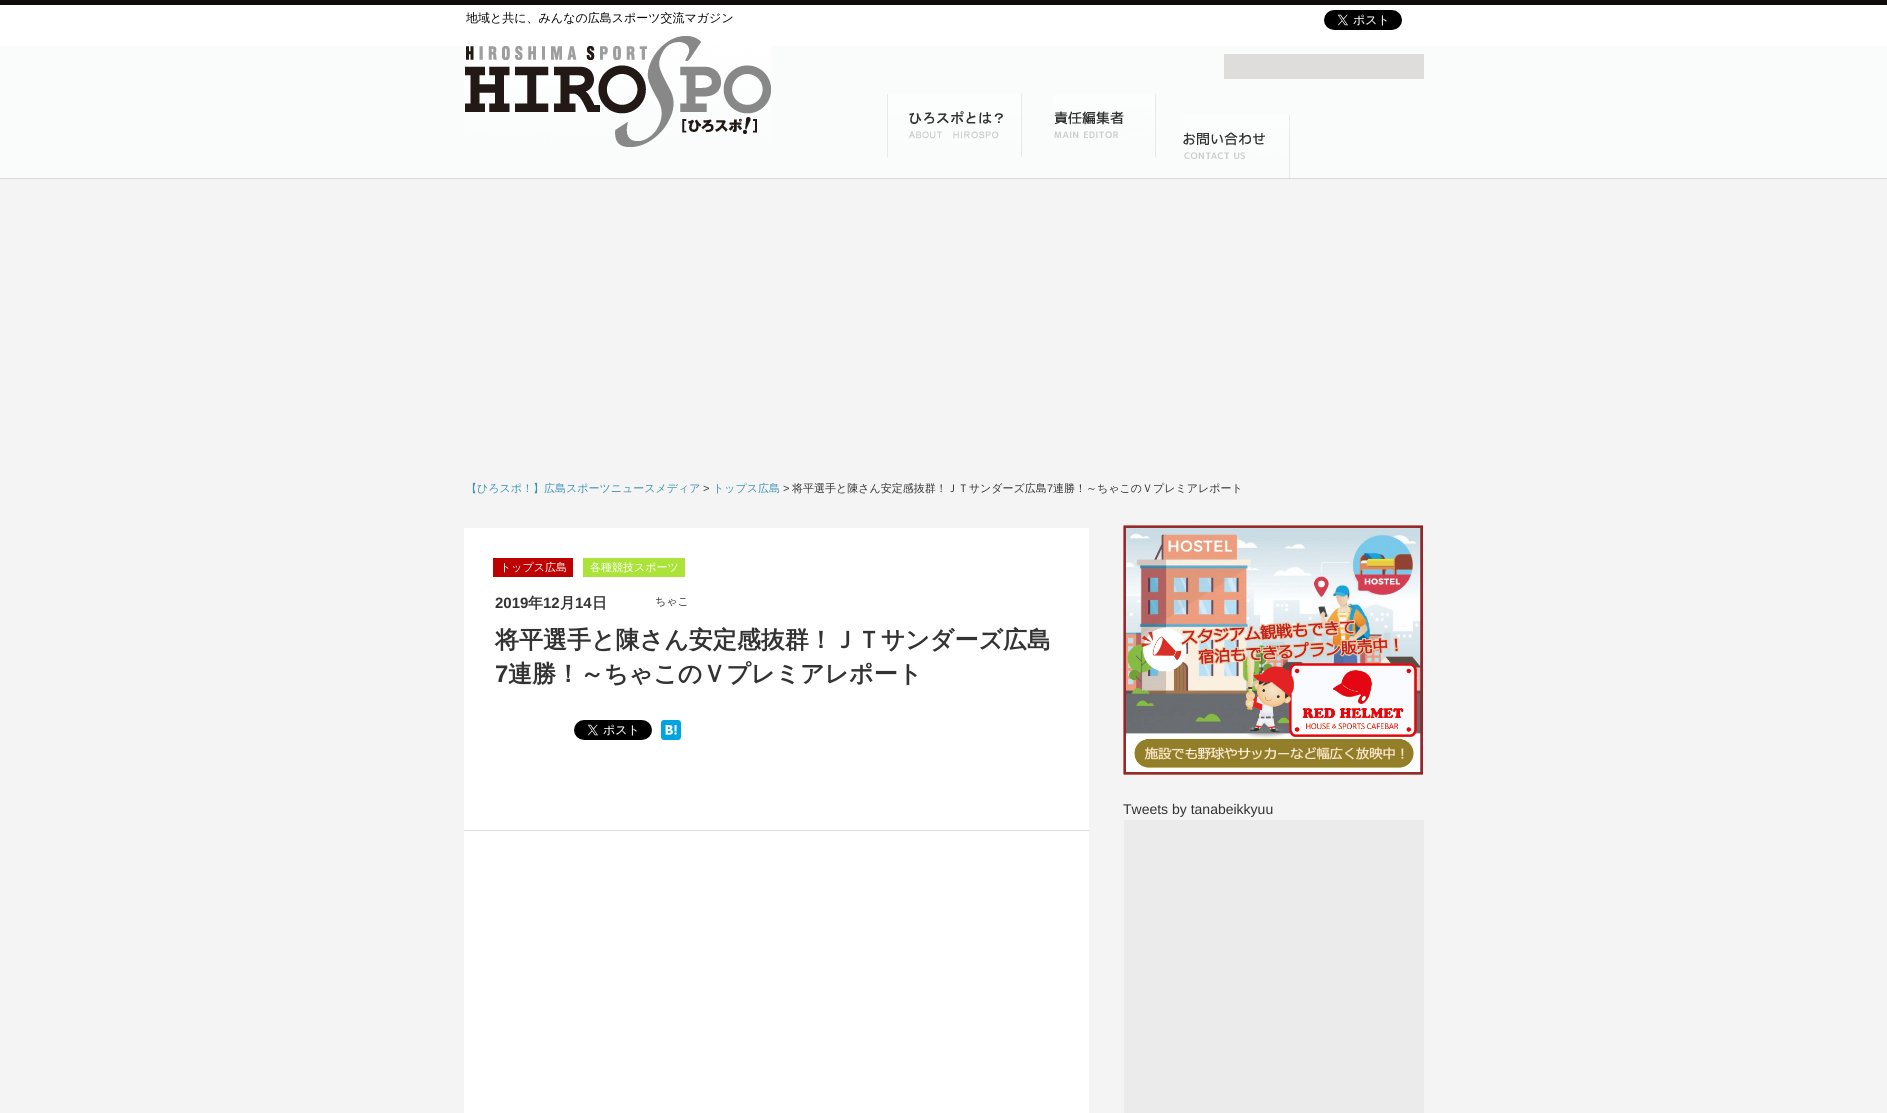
import math
import cairo



def draw_image(context, path, x, y, w, h):
    context.save()
    context.set_source_surface(cairo.ImageSurface.create_from_png(path), x, y)
    context.rectangle(x, y, w, h)
    context.fill()
    context.restore()


def draw(context):
    context.set_source_rgb(244 / 255, 244 / 255, 244 / 255)
    context.paint()
    context.set_source_rgb(250 / 255, 252 / 255, 252 / 255)
    context.rectangle(0, 46, 1887, 132)
    context.fill()
    context.set_source_rgb(1, 1, 1)
    context.rectangle(0, 5, 1887, 41)
    context.fill()
    context.set_source_rgb(17 / 255, 12 / 255, 12 / 255)
    context.rectangle(0, 0, 1887, 5)
    context.fill()
    context.set_source_rgb(218 / 255, 216 / 255, 216 / 255)
    context.rectangle(0, 178, 1887, 1)
    context.fill()
    draw_image(context, "images/1.png", 1324, 10, 78, 20)
    draw_image(context, "images/2.png", 464, 36, 307, 111)
    context.set_source_rgb(223 / 255, 221 / 255, 219 / 255)
    context.rectangle(1224, 54, 200, 25)
    context.fill()
    draw_image(context, "images/3.png", 887, 94, 135, 63)
    draw_image(context, "images/4.png", 1054, 94, 102, 63)
    draw_image(context, "images/5.png", 1183, 115, 107, 63)
    context.set_source_rgb(1, 1, 1)
    context.rectangle(464, 528, 625, 585)
    context.fill()
    context.set_source_rgb(221 / 255, 221 / 255, 221 / 255)
    context.rectangle(464, 830, 625, 1)
    context.fill()
    context.set_source_rgb(189 / 255, 0, 0)
    context.rectangle(493, 558, 80, 19)
    context.fill()
    context.set_source_rgb(172 / 255, 227 / 255, 57 / 255)
    context.rectangle(583, 558, 102, 19)
    context.fill()
    draw_image(context, "images/6.png", 574, 720, 78, 20)
    draw_image(context, "images/7.png", 661, 720, 20, 20)
    draw_image(context, "images/8.png", 1123, 525, 300, 250)
    context.set_source_rgb(235 / 255, 235 / 255, 235 / 255)
    context.rectangle(1124, 820, 300, 293)
    context.fill()
    context.select_font_face("WenQuanYi Zen Hei Medium")
    context.set_font_size(12)
    context.set_source_rgb(0, 0, 0)
    context.move_to(466, 22)
    context.show_text("地域と共に、みんなの広島スポーツ交流マガジン")
    context.set_font_size(11)
    context.set_source_rgb(62 / 255, 146 / 255, 178 / 255)
    context.move_to(466, 492)
    context.show_text("【ひろスポ！】広島スポーツニュースメディア")
    context.select_font_face("Liberation Sans")
    context.set_source_rgb(51 / 255, 51 / 255, 51 / 255)
    context.move_to(703, 492)
    context.show_text(">")
    context.select_font_face("WenQuanYi Zen Hei Medium")
    context.set_source_rgb(62 / 255, 146 / 255, 178 / 255)
    context.move_to(713, 492)
    context.show_text("トップス広島")
    context.select_font_face("Liberation Sans")
    context.set_source_rgb(51 / 255, 51 / 255, 51 / 255)
    context.move_to(783, 492)
    context.show_text(">")
    context.select_font_face("WenQuanYi Zen Hei Medium")
    context.move_to(792, 492)
    context.show_text("将平選手と陳さん安定感抜群！ＪＴサンダーズ広島")
    context.select_font_face("Liberation Sans")
    context.move_to(1047, 492)
    context.show_text("7")
    context.select_font_face("WenQuanYi Zen Hei Medium")
    context.move_to(1053, 492)
    context.show_text("連勝！～ちゃこのＶプレミアレポート")
    context.set_source_rgb(1, 1, 1)
    context.move_to(500, 571)
    context.show_text("トップス広島")
    context.move_to(590, 571)
    context.show_text("各種競技スポーツ")
    context.select_font_face("Liberation Sans", cairo.FontSlant.NORMAL, cairo.FontWeight.BOLD)
    context.set_font_size(15)
    context.set_source_rgb(51 / 255, 51 / 255, 51 / 255)
    context.move_to(495, 608)
    context.show_text("2019")
    context.select_font_face("WenQuanYi Zen Hei", cairo.FontSlant.NORMAL, cairo.FontWeight.BOLD)
    context.move_to(528, 608)
    context.show_text("年")
    context.select_font_face("Liberation Sans", cairo.FontSlant.NORMAL, cairo.FontWeight.BOLD)
    context.move_to(543, 608)
    context.show_text("12")
    context.select_font_face("WenQuanYi Zen Hei", cairo.FontSlant.NORMAL, cairo.FontWeight.BOLD)
    context.move_to(560, 608)
    context.show_text("月")
    context.select_font_face("Liberation Sans", cairo.FontSlant.NORMAL, cairo.FontWeight.BOLD)
    context.move_to(575, 608)
    context.show_text("14")
    context.select_font_face("WenQuanYi Zen Hei", cairo.FontSlant.NORMAL, cairo.FontWeight.BOLD)
    context.move_to(592, 608)
    context.show_text("日")
    context.select_font_face("WenQuanYi Zen Hei Medium")
    context.set_font_size(11)
    context.move_to(655, 605)
    context.show_text("ちゃこ")
    context.select_font_face("WenQuanYi Zen Hei", cairo.FontSlant.NORMAL, cairo.FontWeight.BOLD)
    context.set_font_size(24)
    context.move_to(495, 648)
    context.show_text("将平選手と陳さん安定感抜群！ＪＴサンダーズ広島")
    context.select_font_face("Liberation Sans", cairo.FontSlant.NORMAL, cairo.FontWeight.BOLD)
    context.move_to(495, 682)
    context.show_text("7")
    context.select_font_face("WenQuanYi Zen Hei", cairo.FontSlant.NORMAL, cairo.FontWeight.BOLD)
    context.move_to(508, 682)
    context.show_text("連勝！～ちゃこのＶプレミアレポート")
    context.select_font_face("Liberation Sans")
    context.set_font_size(14)
    context.move_to(1123, 814)
    context.show_text("Tweets by tanabeikkyuu")


surface = cairo.ImageSurface(cairo.Format.RGB24, 1887, 1113)
context = cairo.Context(surface)
options = cairo.FontOptions()
options.set_hint_metrics(cairo.HintMetrics.OFF)
options.set_hint_style(cairo.HintStyle.NONE)
context.set_font_options(options)
context.set_miter_limit(4)
draw(context)
surface.write_to_png("out.png")
